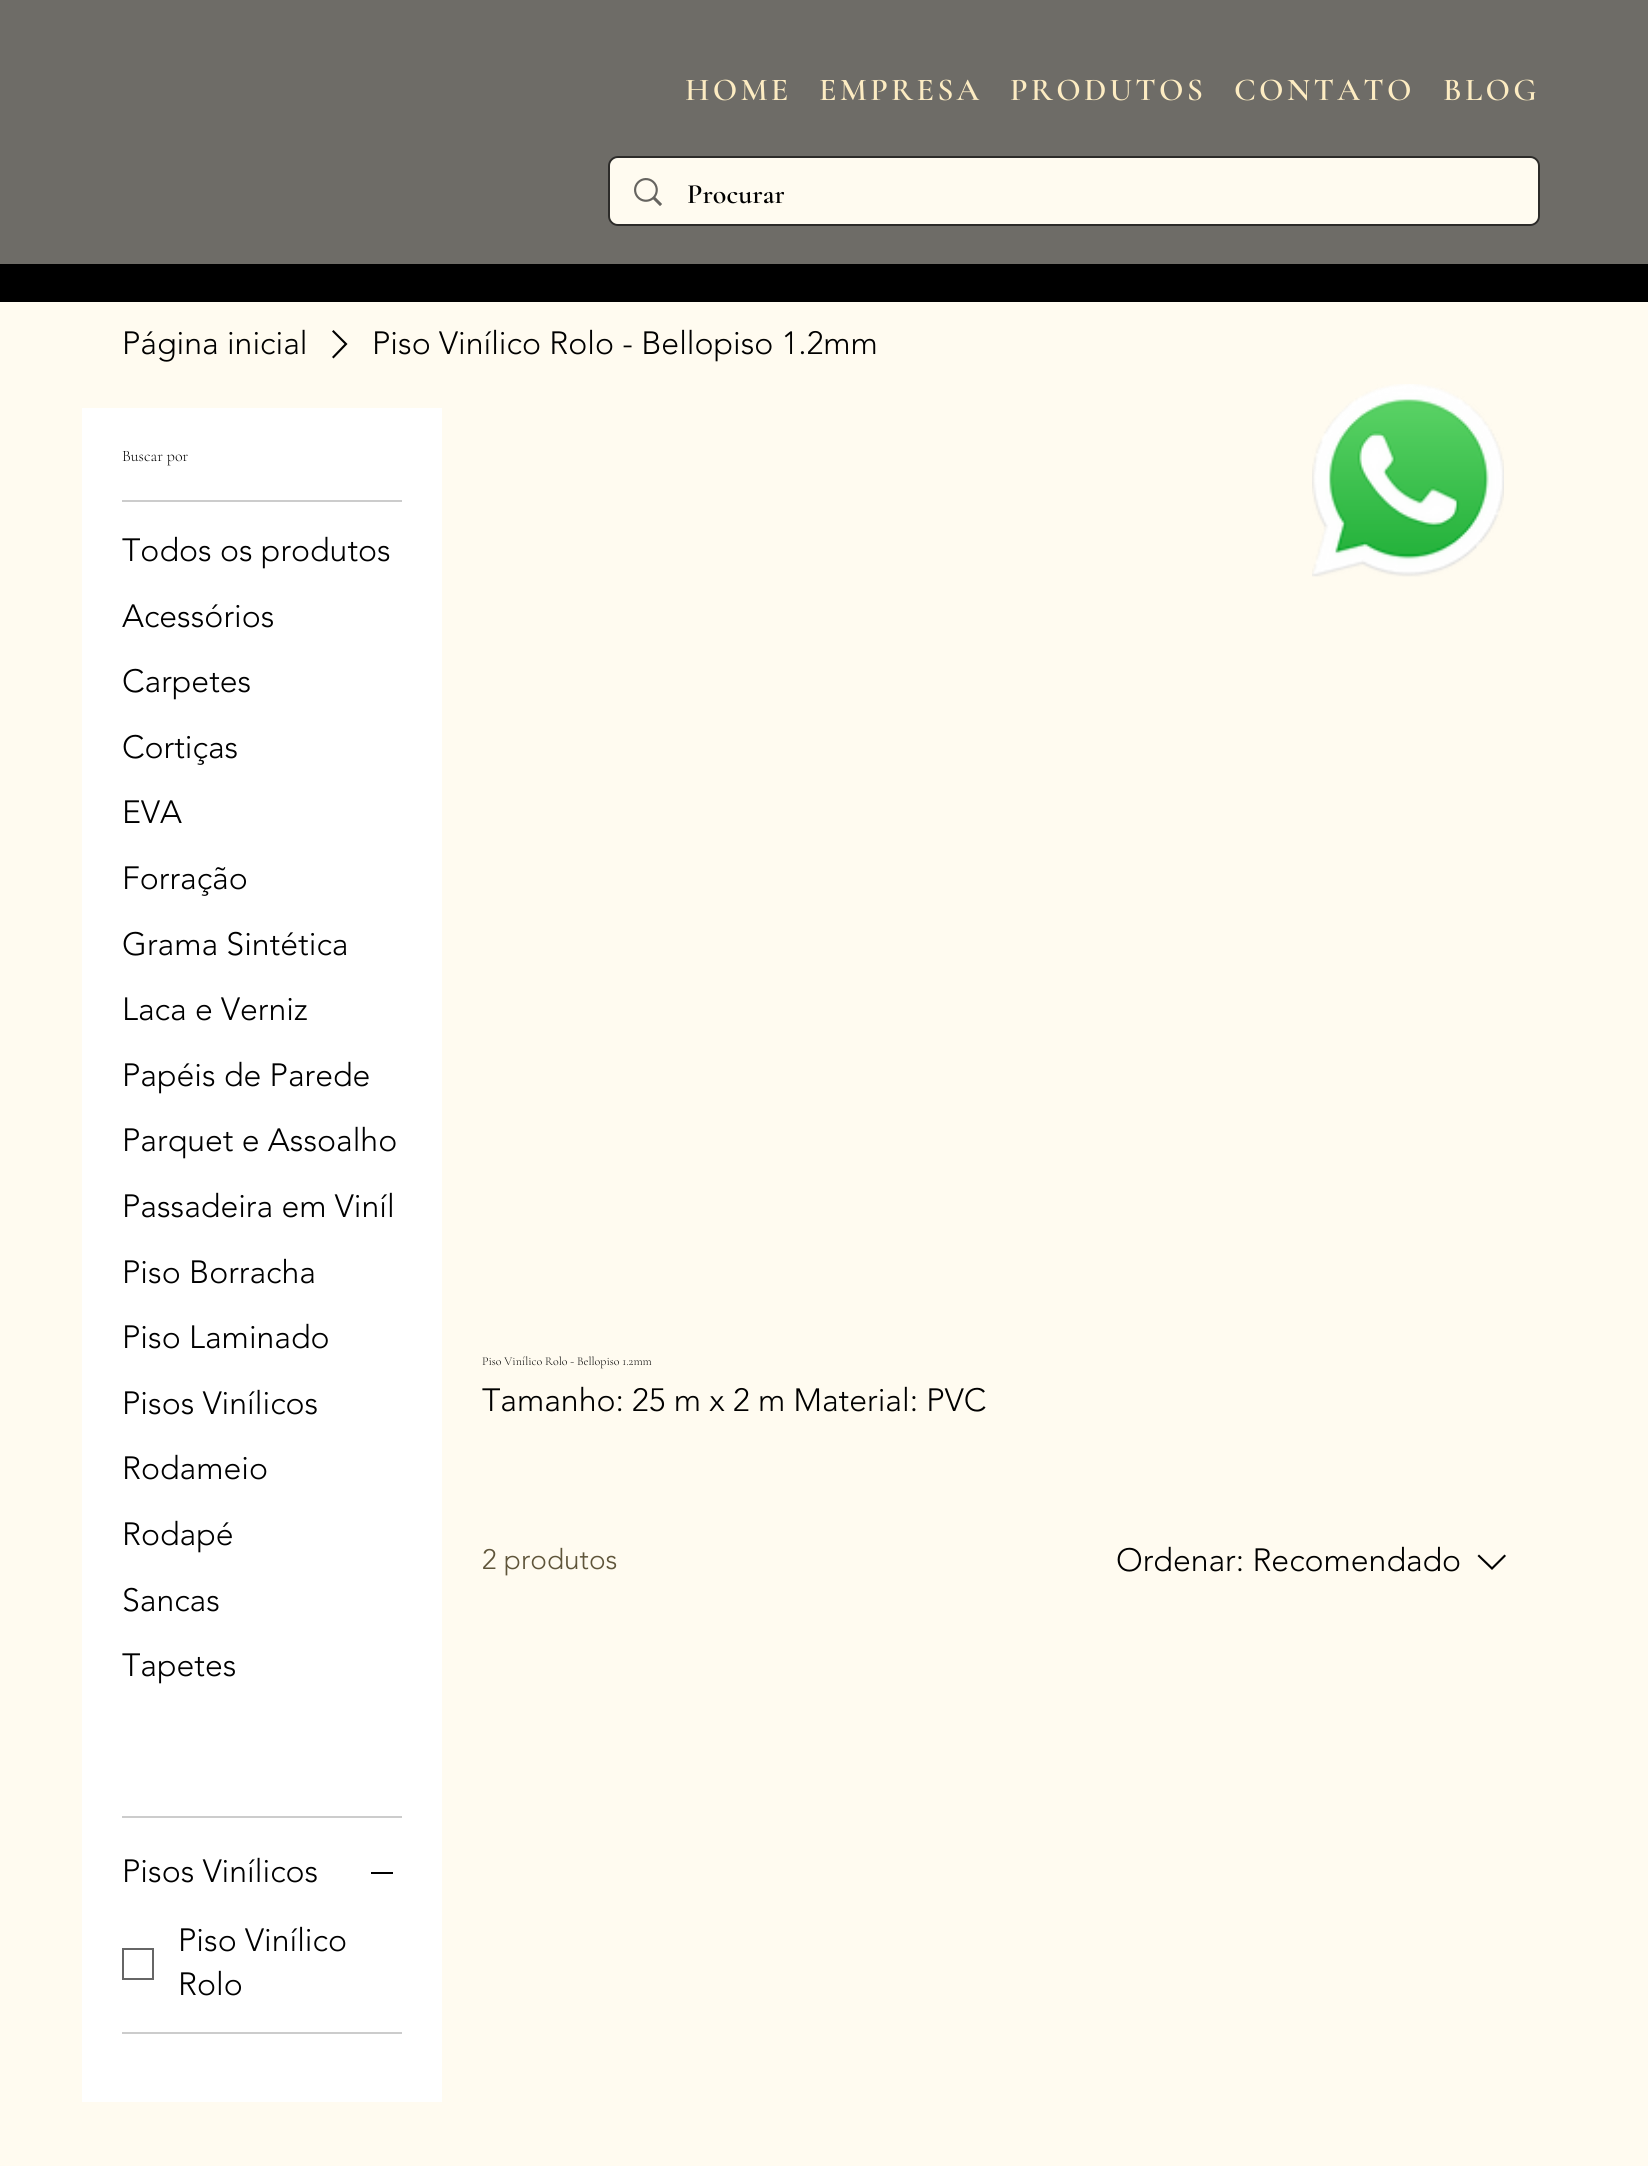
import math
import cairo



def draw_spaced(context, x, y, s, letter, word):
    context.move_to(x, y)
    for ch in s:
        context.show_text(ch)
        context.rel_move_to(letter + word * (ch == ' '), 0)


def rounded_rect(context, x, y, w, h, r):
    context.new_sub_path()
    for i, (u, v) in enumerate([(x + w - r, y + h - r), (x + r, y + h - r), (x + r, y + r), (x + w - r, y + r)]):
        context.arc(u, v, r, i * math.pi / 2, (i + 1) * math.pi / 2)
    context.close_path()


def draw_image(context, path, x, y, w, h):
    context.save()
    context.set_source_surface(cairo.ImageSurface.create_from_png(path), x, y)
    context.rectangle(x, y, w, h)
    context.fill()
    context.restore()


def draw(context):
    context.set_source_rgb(1, 251 / 255, 240 / 255)
    context.paint()
    context.set_source_rgb(110 / 255, 108 / 255, 103 / 255)
    context.rectangle(0, 0, 1648, 264)
    context.fill()
    rounded_rect(context, 609, 157, 930, 68, 9)
    context.set_source_rgb(44 / 255, 43 / 255, 41 / 255)
    context.stroke()
    context.set_source_rgb(1, 251 / 255, 240 / 255)
    rounded_rect(context, 610, 158, 928, 66, 8)
    context.fill()
    draw_image(context, "images/1.png", 634, 178, 28, 28)
    context.set_source_rgb(0, 0, 0)
    context.rectangle(0, 264, 1648, 38)
    context.fill()
    context.set_fill_rule(cairo.FillRule.EVEN_ODD)
    context.new_path()
    context.move_to(333.5, 330)
    context.line_to(347.5, 344)
    context.line_to(333.5, 358.5)
    context.line_to(332, 357)
    context.line_to(344.5, 344)
    context.line_to(332, 331.5)
    context.close_path()
    context.fill()
    context.set_source_rgb(1, 1, 1)
    context.rectangle(82, 408, 360, 1694)
    context.fill()
    context.set_source_rgb(204 / 255, 204 / 255, 204 / 255)
    context.rectangle(122, 500, 280, 2)
    context.fill()
    context.rectangle(122, 1816, 280, 2)
    context.fill()
    context.rectangle(122, 2032, 280, 2)
    context.fill()
    context.set_source_rgb(0, 0, 0)
    context.rectangle(371, 1872, 22, 2)
    context.fill()
    context.rectangle(123, 1949, 30, 30)
    context.set_source_rgb(102 / 255, 102 / 255, 102 / 255)
    context.stroke()
    context.set_source_rgb(0, 0, 0)
    context.new_path()
    context.move_to(1504.5, 1554.5)
    context.line_to(1506, 1556)
    context.line_to(1492, 1570)
    context.line_to(1477.5, 1556)
    context.line_to(1479, 1554.5)
    context.line_to(1492, 1567)
    context.close_path()
    context.fill()
    draw_image(context, "images/2.png", 1312, 384, 192, 193)
    context.select_font_face("Cormorant Garamond SemiBold")
    context.set_font_size(32)
    context.set_source_rgb(253 / 255, 236 / 255, 194 / 255)
    draw_spaced(context, 685, 100, "HOME", 3.25, 0)
    draw_spaced(context, 819, 100, "EMPRESA", 3.25, 0)
    draw_spaced(context, 1010, 100, "PRODUTOS", 3.25, 0)
    draw_spaced(context, 1234, 100, "CONTATO", 3.25, 0)
    draw_spaced(context, 1443, 100, "BLOG", 3.25, 0)
    context.set_font_size(28)
    context.set_source_rgb(0, 0, 0)
    context.move_to(687, 203)
    context.show_text("Procurar")
    context.select_font_face("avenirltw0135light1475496 Light")
    context.set_font_size(32)
    context.move_to(122, 354)
    context.show_text("Página inicial")
    context.move_to(372, 354)
    context.show_text("Piso Vinílico Rolo - Bellopiso 1.2mm")
    context.select_font_face("Cormorant Garamond Light")
    context.set_font_size(16)
    context.move_to(122, 461)
    context.show_text("Buscar por")
    context.select_font_face("avenirltw0135light1475496 Light")
    context.set_font_size(32)
    context.move_to(122, 561)
    context.show_text("Todos os produtos")
    context.move_to(122, 627)
    context.show_text("Acessórios")
    context.move_to(122, 692)
    context.show_text("Carpetes")
    context.move_to(122, 758)
    context.show_text("Cortiças")
    context.move_to(122, 823)
    context.show_text("EVA")
    context.move_to(122, 889)
    context.show_text("Forração")
    context.move_to(122, 955)
    context.show_text("Grama Sintética")
    context.move_to(122, 1020)
    context.show_text("Laca e Verniz")
    context.move_to(122, 1086)
    context.show_text("Papéis de Parede")
    context.move_to(122, 1151)
    context.show_text("Parquet e Assoalho")
    context.move_to(122, 1217)
    context.show_text("Passadeira em Viníl")
    context.move_to(122, 1283)
    context.show_text("Piso Borracha")
    context.move_to(122, 1348)
    context.show_text("Piso Laminado")
    context.move_to(122, 1414)
    context.show_text("Pisos Vinílicos")
    context.move_to(122, 1479)
    context.show_text("Rodameio")
    context.move_to(122, 1545)
    context.show_text("Rodapé")
    context.move_to(122, 1611)
    context.show_text("Sancas")
    context.move_to(122, 1676)
    context.show_text("Tapetes")
    context.move_to(122, 1882)
    context.show_text("Pisos Vinílicos")
    context.move_to(178, 1951)
    context.show_text("Piso Vinílico")
    context.move_to(178, 1995)
    context.show_text("Rolo")
    context.select_font_face("Cormorant Garamond Light")
    context.set_font_size(12)
    context.move_to(482, 1365)
    context.show_text("Piso Vinílico Rolo - Bellopiso 1.2mm")
    context.select_font_face("avenirltw0135light1475496 Light")
    context.set_font_size(32)
    context.move_to(482, 1411)
    context.show_text("Tamanho: 25 m x 2 m Material: PVC")
    context.set_font_size(28)
    context.set_source_rgb(95 / 255, 85 / 255, 58 / 255)
    context.move_to(482, 1569)
    context.show_text("2 produtos")
    context.set_font_size(32)
    context.set_source_rgb(0, 0, 0)
    context.move_to(1116, 1571)
    context.show_text("Ordenar: Recomendado")


surface = cairo.ImageSurface(cairo.Format.RGB24, 1648, 2166)
context = cairo.Context(surface)
options = cairo.FontOptions()
options.set_hint_metrics(cairo.HintMetrics.OFF)
options.set_hint_style(cairo.HintStyle.NONE)
context.set_font_options(options)
context.set_miter_limit(4)
draw(context)
surface.write_to_png("out.png")
